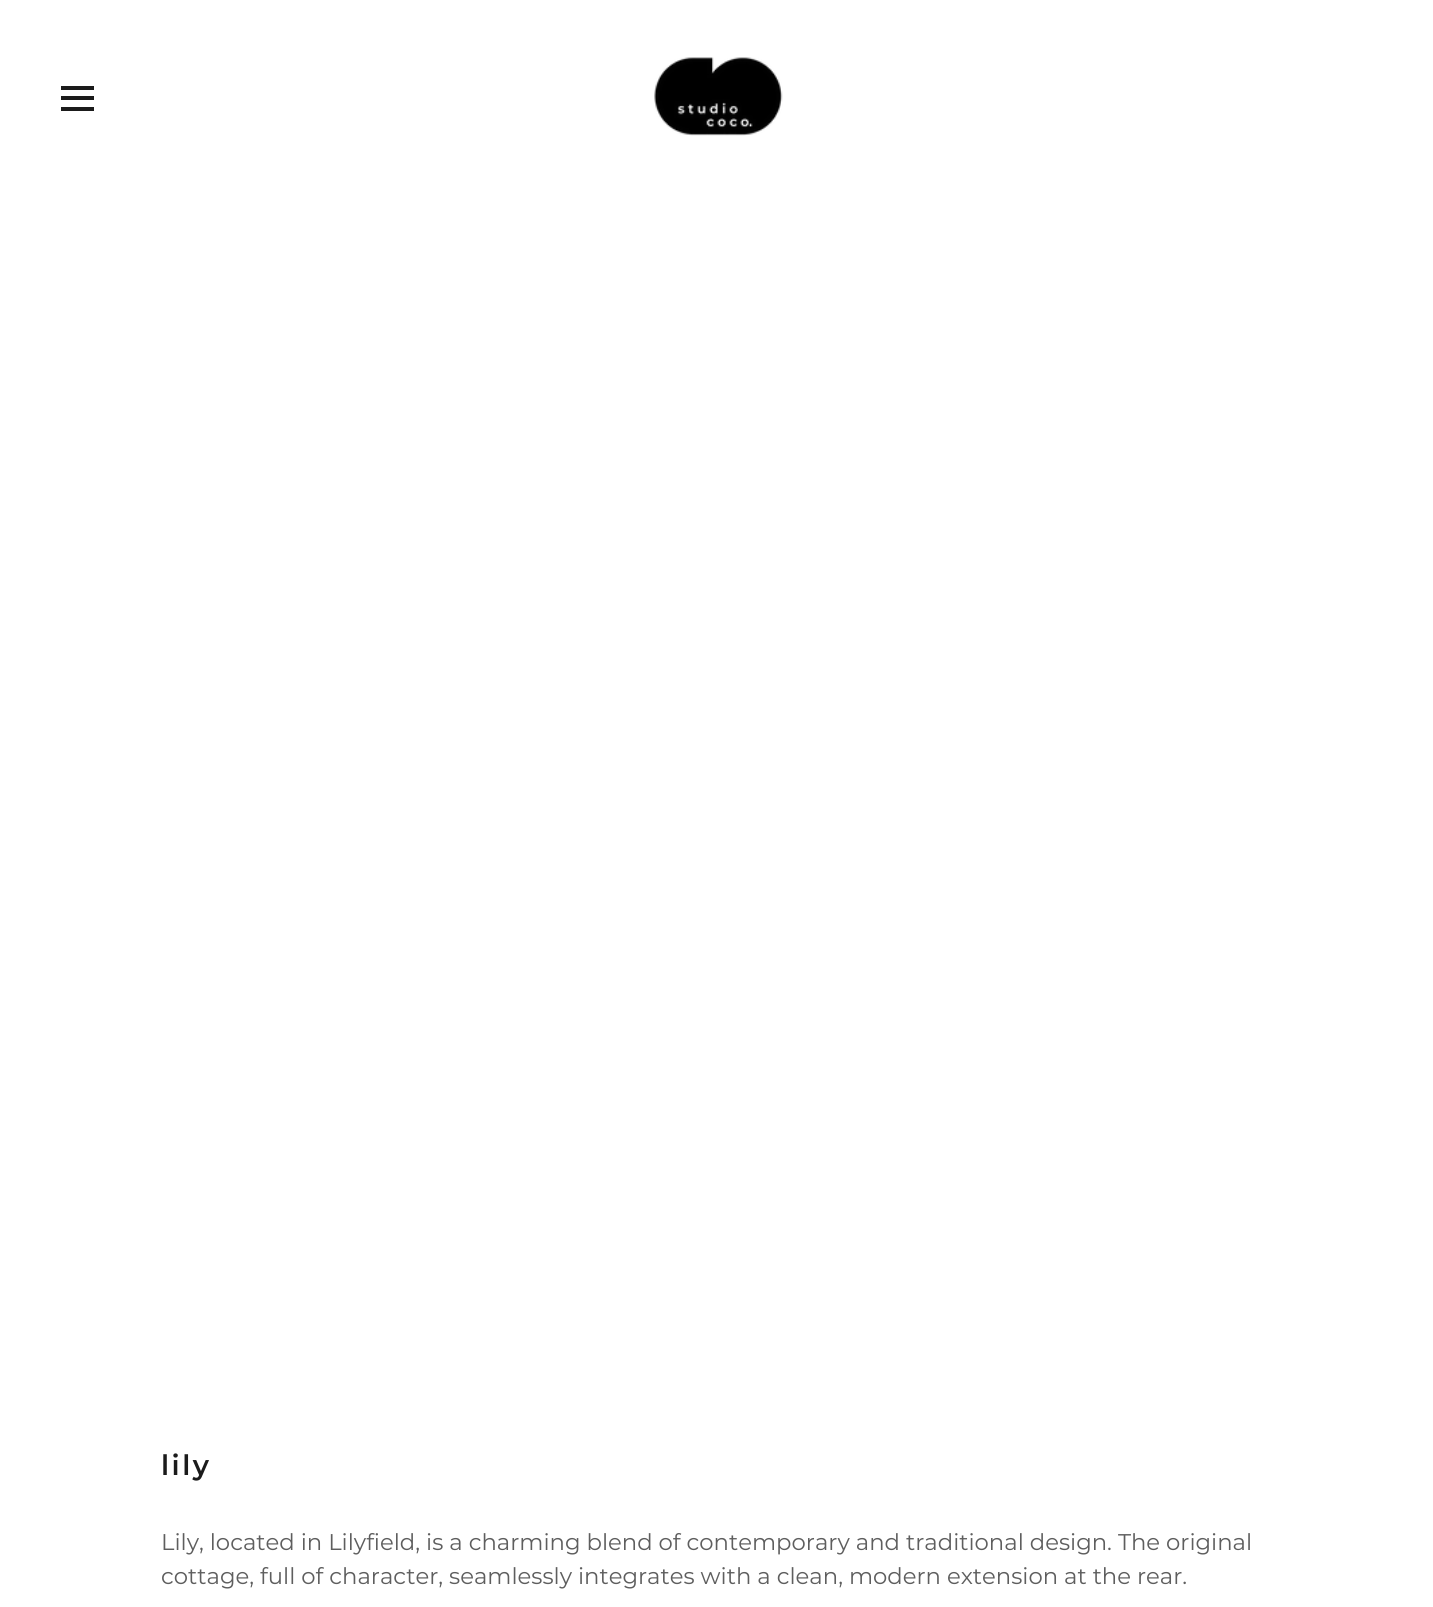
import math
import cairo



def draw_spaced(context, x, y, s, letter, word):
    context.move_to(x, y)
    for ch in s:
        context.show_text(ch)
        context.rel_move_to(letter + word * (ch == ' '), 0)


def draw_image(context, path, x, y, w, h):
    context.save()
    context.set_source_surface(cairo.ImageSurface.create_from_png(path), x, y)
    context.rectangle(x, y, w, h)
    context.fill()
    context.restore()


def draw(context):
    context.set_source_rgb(1, 1, 1)
    context.paint()
    context.set_source_rgb(27 / 255, 27 / 255, 27 / 255)
    context.rectangle(61, 86, 33, 4)
    context.fill()
    context.rectangle(61, 96, 33, 4)
    context.fill()
    context.rectangle(61, 107, 33, 4)
    context.fill()
    draw_image(context, "images/1.png", 654, 57, 129, 79)
    context.select_font_face("Montserrat SemiBold")
    context.set_font_size(28)
    draw_spaced(context, 161, 1475, "lily", 2.5, 0)
    context.select_font_face("Montserrat")
    context.set_font_size(22.75)
    context.set_source_rgb(94 / 255, 94 / 255, 94 / 255)
    context.move_to(161, 1550)
    context.show_text("Lily, located in Lilyfield, is a charming blend of contemporary and traditional design. The original")
    context.move_to(161, 1584)
    context.show_text("cottage, full of character, seamlessly integrates with a clean, modern extension at the rear.")


surface = cairo.ImageSurface(cairo.Format.RGB24, 1433, 1607)
context = cairo.Context(surface)
options = cairo.FontOptions()
options.set_hint_metrics(cairo.HintMetrics.OFF)
options.set_hint_style(cairo.HintStyle.NONE)
context.set_font_options(options)
context.set_miter_limit(4)
draw(context)
surface.write_to_png("out.png")
